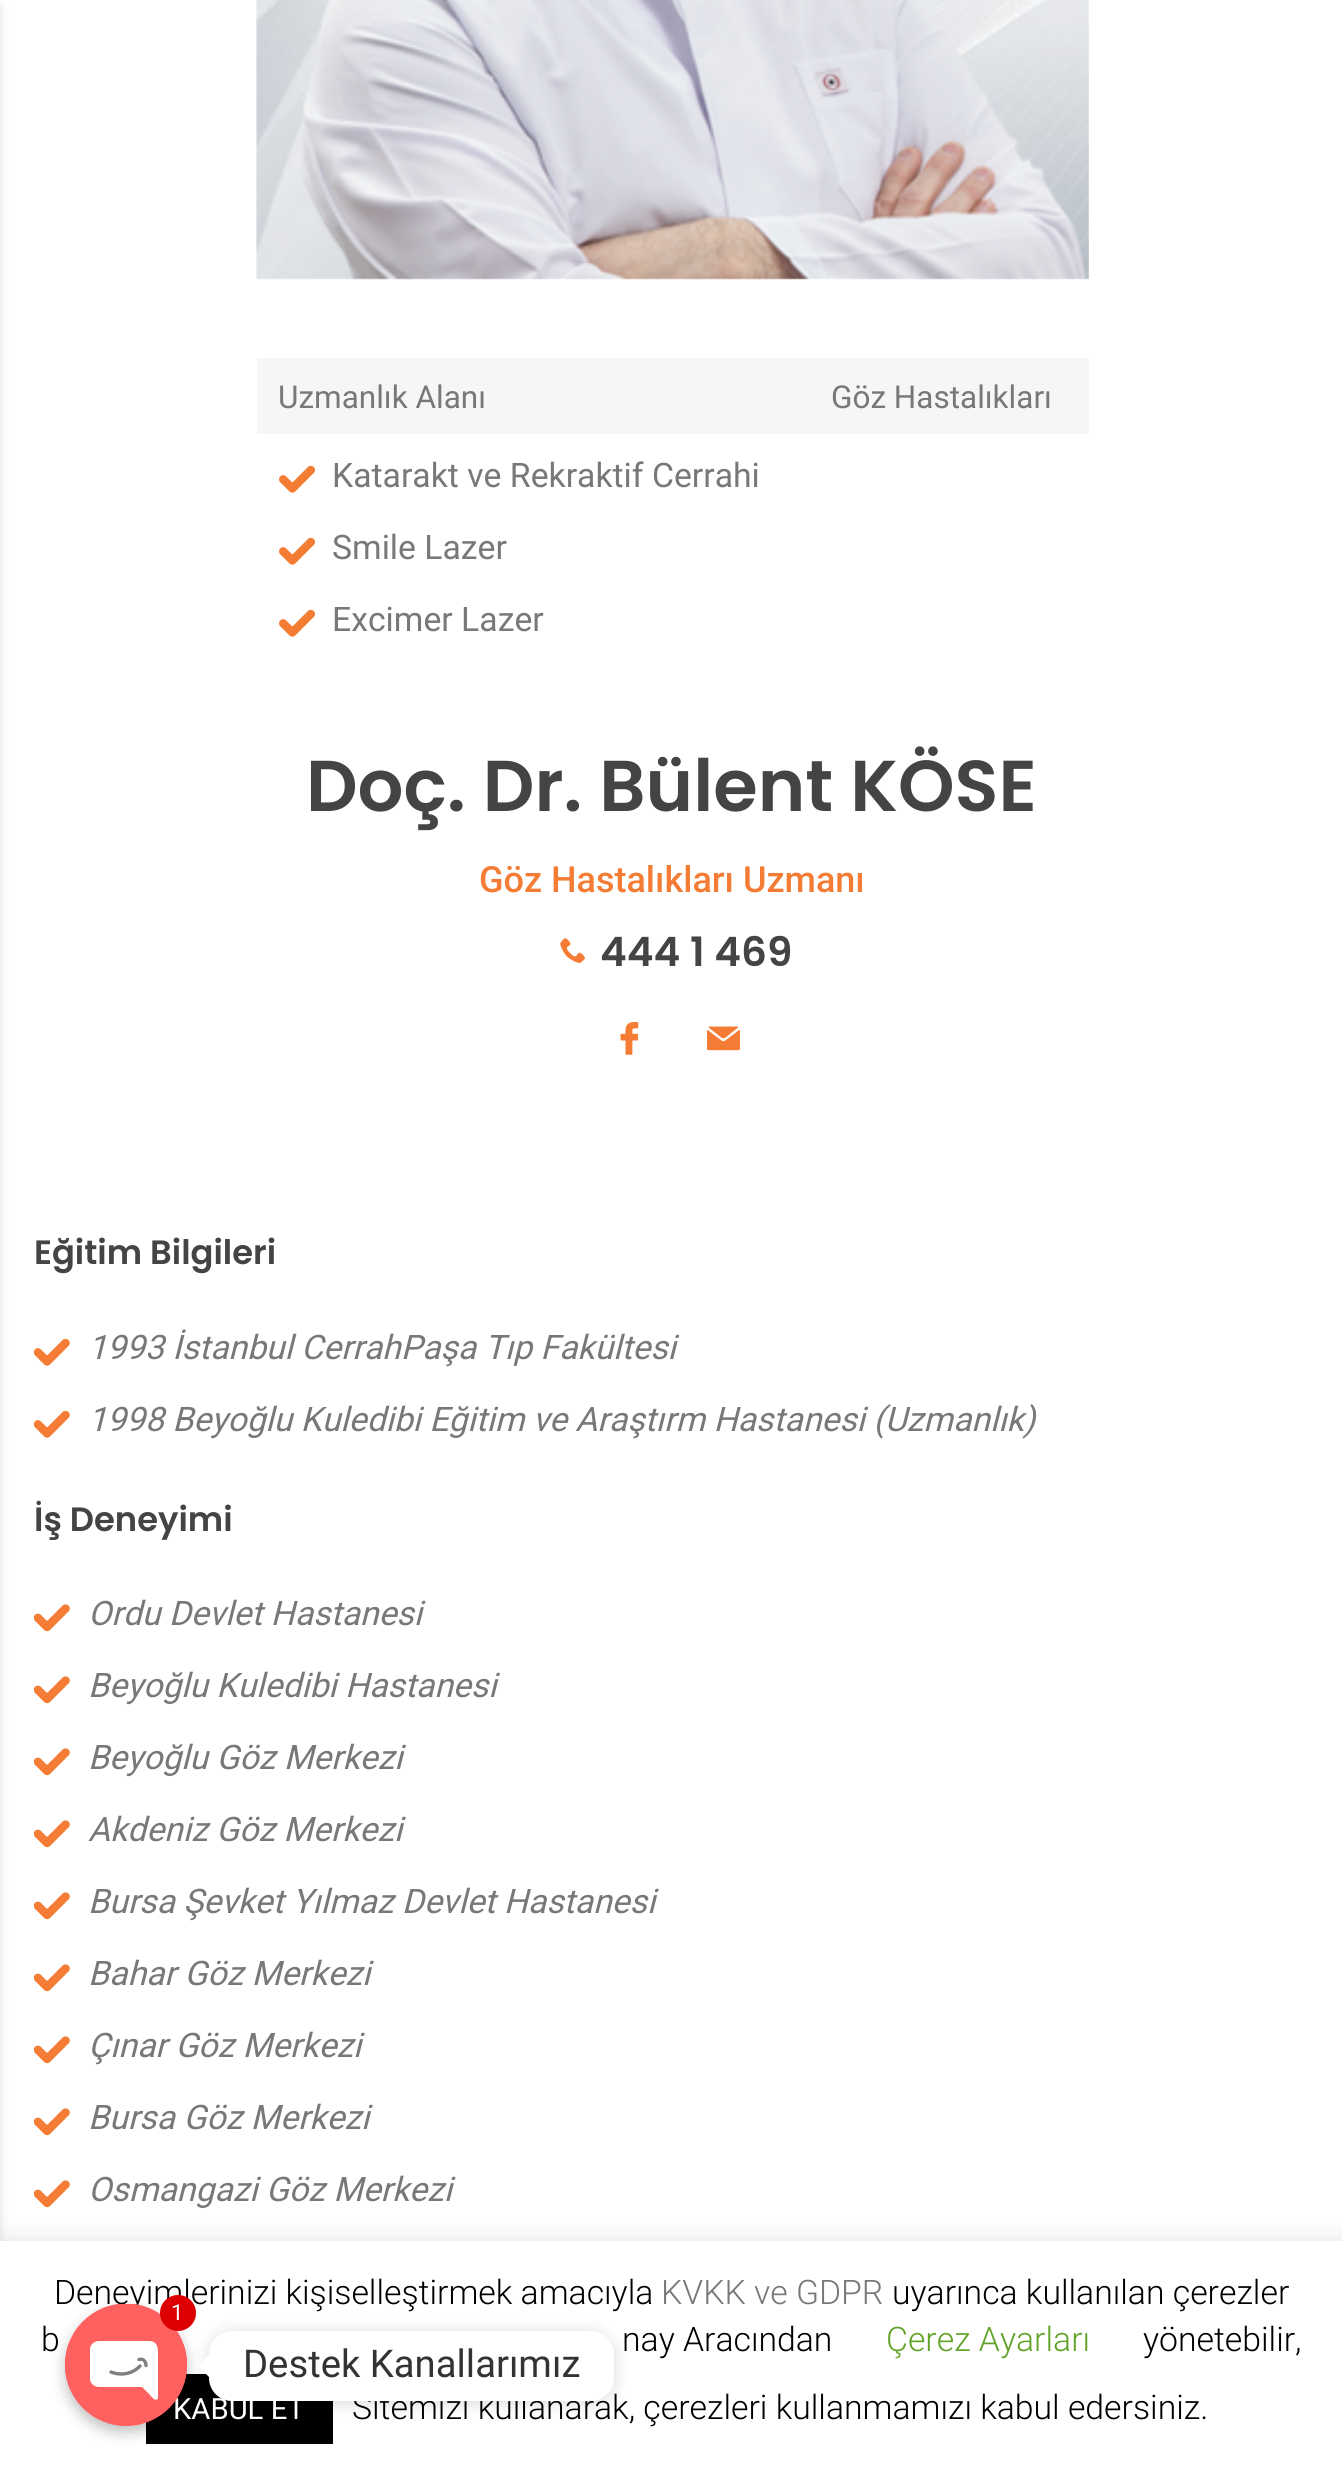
import math
import cairo



def rounded_rect(context, x, y, w, h, r):
    context.new_sub_path()
    for i, (u, v) in enumerate([(x + w - r, y + h - r), (x + r, y + h - r), (x + r, y + r), (x + w - r, y + r)]):
        context.arc(u, v, r, i * math.pi / 2, (i + 1) * math.pi / 2)
    context.close_path()


def draw_shadow(context, x, y, w, h, r, blur, alpha):
    context.push_group_with_content(cairo.Content.ALPHA)
    context.set_operator(cairo.Operator.SOURCE)
    for i in range(15, -16, -2):
        e = blur * i / 6
        if min(w, h) + 2 * e > 0:
            context.set_source_rgba(0, 0, 0, alpha * math.erfc((i - 1) / 8.5) / 2)
            rounded_rect(context, x - e, y - e, w + 2 * e, h + 2 * e, max(0, min(r + e + blur * .6, min(w, h) / 2 + e)))
            context.fill()
    context.mask(context.pop_group())


def draw_image(context, path, x, y, w, h):
    context.save()
    context.set_source_surface(cairo.ImageSurface.create_from_png(path), x, y)
    context.rectangle(x, y, w, h)
    context.fill()
    context.restore()


def draw(context):
    context.set_source_rgb(1, 1, 1)
    context.paint()
    context.set_source_rgb(0, 0, 0)
    draw_shadow(context, -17, 7, 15, 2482, 0, 5.5, 0.2)
    draw_image(context, "images/1.png", 256, 0, 833, 280)
    context.set_source_rgb(246 / 255, 246 / 255, 246 / 255)
    context.rectangle(257, 358, 832, 76)
    context.fill()
    draw_image(context, "images/2.png", 279, 465, 36, 28)
    draw_image(context, "images/2.png", 279, 537, 36, 28)
    draw_image(context, "images/2.png", 279, 609, 36, 28)
    draw_image(context, "images/3.png", 560, 938, 25, 25)
    draw_image(context, "images/4.png", 620, 1022, 19, 33)
    draw_image(context, "images/5.png", 707, 1026, 33, 25)
    draw_image(context, "images/6.png", 34, 1338, 36, 28)
    draw_image(context, "images/6.png", 34, 1410, 36, 28)
    draw_image(context, "images/7.png", 34, 1604, 36, 28)
    draw_image(context, "images/7.png", 34, 1676, 36, 28)
    draw_image(context, "images/7.png", 34, 1748, 36, 28)
    draw_image(context, "images/7.png", 34, 1820, 36, 28)
    draw_image(context, "images/7.png", 34, 1892, 36, 28)
    draw_image(context, "images/7.png", 34, 1964, 36, 28)
    draw_image(context, "images/7.png", 34, 2036, 36, 28)
    draw_image(context, "images/7.png", 34, 2108, 36, 28)
    draw_image(context, "images/7.png", 34, 2180, 36, 28)
    context.set_source_rgb(172 / 255, 171 / 255, 171 / 255)
    draw_shadow(context, 0, 2239, 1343, 241, 0, 11, 0.3)
    context.set_source_rgb(1, 1, 1)
    context.rectangle(0, 2241, 1342, 240)
    context.fill()
    context.set_source_rgb(0, 0, 0)
    context.rectangle(146, 2374, 187, 70)
    context.fill()
    context.set_source_rgb(0, 0, 0)
    draw_shadow(context, 209, 2333, 405, 70, 23, 8.5, 0.15)
    context.set_source_rgb(1, 1, 1)
    context.new_path()
    context.move_to(209, 2354.5)
    context.line_to(209, 2377)
    context.line_to(198, 2366)
    context.close_path()
    context.fill()
    context.set_source_rgb(0, 0, 0)
    draw_shadow(context, 65, 2311, 122, 121, 60.5, 7, 0.25)
    context.select_font_face("Roboto")
    context.set_font_size(31.5)
    context.set_source_rgb(120 / 255, 120 / 255, 120 / 255)
    context.move_to(278, 408)
    context.show_text("Uzmanlık Alanı")
    context.move_to(831, 408)
    context.show_text("Göz Hastalıkları")
    context.set_font_size(33.75)
    context.move_to(332, 487)
    context.show_text("Katarakt ve Rekraktif Cerrahi")
    context.move_to(332, 559)
    context.show_text("Smile Lazer")
    context.move_to(332, 631)
    context.show_text("Excimer Lazer")
    context.select_font_face("Poppins SemiBold")
    context.set_font_size(72)
    context.set_source_rgb(68 / 255, 68 / 255, 68 / 255)
    context.move_to(306, 811)
    context.show_text("Doç. Dr. Bülent KÖSE")
    context.select_font_face("Roboto Medium")
    context.set_font_size(36)
    context.set_source_rgb(244 / 255, 124 / 255, 52 / 255)
    context.move_to(479, 892)
    context.show_text("Göz Hastalıkları Uzmanı")
    context.select_font_face("Poppins SemiBold")
    context.set_font_size(40.5)
    context.set_source_rgb(68 / 255, 68 / 255, 68 / 255)
    context.move_to(600, 966)
    context.show_text("444 1 469")
    context.set_font_size(33.75)
    context.move_to(34, 1264)
    context.show_text("Eğitim Bilgileri")
    context.select_font_face("Roboto", cairo.FontSlant.ITALIC)
    context.set_source_rgb(120 / 255, 120 / 255, 120 / 255)
    context.move_to(88, 1359)
    context.show_text("1993 İstanbul CerrahPaşa Tıp Fakültesi")
    context.move_to(88, 1431)
    context.show_text("1998 Beyoğlu Kuledibi Eğitim ve Araştırm Hastanesi (Uzmanlık)")
    context.select_font_face("Poppins SemiBold")
    context.set_source_rgb(68 / 255, 68 / 255, 68 / 255)
    context.move_to(34, 1531)
    context.show_text("İş Deneyimi")
    context.select_font_face("Roboto", cairo.FontSlant.ITALIC)
    context.set_source_rgb(120 / 255, 120 / 255, 120 / 255)
    context.move_to(88, 1625)
    context.show_text("Ordu Devlet Hastanesi")
    context.move_to(88, 1697)
    context.show_text("Beyoğlu Kuledibi Hastanesi")
    context.move_to(88, 1769)
    context.show_text("Beyoğlu Göz Merkezi")
    context.move_to(88, 1841)
    context.show_text("Akdeniz Göz Merkezi")
    context.move_to(88, 1913)
    context.show_text("Bursa Şevket Yılmaz Devlet Hastanesi")
    context.move_to(88, 1985)
    context.show_text("Bahar Göz Merkezi")
    context.move_to(88, 2057)
    context.show_text("Çınar Göz Merkezi")
    context.move_to(88, 2129)
    context.show_text("Bursa Göz Merkezi")
    context.move_to(88, 2201)
    context.show_text("Osmangazi Göz Merkezi")
    context.select_font_face("Roboto Light")
    context.set_source_rgb(0, 0, 0)
    context.move_to(54, 2304)
    context.show_text("Deneyimlerinizi kişiselleştirmek amacıyla")
    context.set_source_rgb(120 / 255, 120 / 255, 120 / 255)
    context.move_to(661, 2304)
    context.show_text("KVKK ve GDPR")
    context.set_source_rgb(0, 0, 0)
    context.move_to(892, 2304)
    context.show_text("uyarınca kullanılan çerezler")
    context.move_to(41, 2351)
    context.show_text("b")
    context.move_to(622, 2351)
    context.show_text("nay Aracından")
    context.set_source_rgb(98 / 255, 163 / 255, 41 / 255)
    context.move_to(886, 2351)
    context.show_text("Çerez Ayarları")
    context.set_source_rgb(0, 0, 0)
    context.move_to(1143, 2351)
    context.show_text("yönetebilir,")
    context.select_font_face("Roboto")
    context.set_font_size(29.25)
    context.set_source_rgb(1, 1, 1)
    context.move_to(173, 2419)
    context.show_text("KABUL ET")
    context.select_font_face("Roboto Light")
    context.set_font_size(33.75)
    context.set_source_rgb(0, 0, 0)
    context.move_to(352, 2419)
    context.show_text("Sitemizi kullanarak, çerezleri kullanmamızı kabul edersiniz.")
    context.set_source_rgb(1, 96 / 255, 96 / 255)
    context.new_path()
    context.arc(126, 2365, 61, 0, 2 * math.pi)
    context.fill()
    context.save()
    context.rectangle(65, 2304, 122, 122)
    context.clip()
    context.arc(126, 2364.5, 61, 0, 2 * math.pi)
    context.fill()
    context.restore()
    context.set_source_rgb(221 / 255, 0, 0)
    context.arc(178, 2313, 18, 0, 2 * math.pi)
    context.fill()
    context.select_font_face("Roboto")
    context.set_font_size(22)
    context.set_source_rgb(1, 1, 1)
    context.move_to(171, 2320)
    context.show_text("1")
    context.new_path()
    context.move_to(149, 2341)
    context.line_to(99, 2341)
    context.curve_to(94, 2341, 90, 2345, 90, 2349)
    context.line_to(90, 2379)
    context.curve_to(90, 2383, 94, 2387, 99, 2387)
    context.line_to(142, 2387)
    context.line_to(150, 2395)
    context.curve_to(151, 2396, 156, 2403, 158, 2398)
    context.line_to(158, 2357)
    context.curve_to(158, 2351, 159, 2341, 149, 2341)
    context.close_path()
    context.fill()
    context.new_path()
    context.move_to(111, 2372)
    context.curve_to(116.5, 2374.5, 130, 2376.5, 140, 2366)
    context.move_to(146, 2365.5)
    context.curve_to(146, 2363, 144.5, 2358, 139, 2359.5)
    context.set_source_rgb(128 / 255, 128 / 255, 128 / 255)
    context.set_line_width(3.4)
    context.set_line_cap(cairo.LineCap.ROUND)
    context.set_line_join(cairo.LineJoin.ROUND)
    context.stroke()
    context.set_source_rgb(1, 1, 1)
    rounded_rect(context, 209, 2331, 405, 70, 23)
    context.fill()
    context.set_font_size(38.25)
    context.set_source_rgb(51 / 255, 51 / 255, 51 / 255)
    context.move_to(243, 2377)
    context.show_text("Destek Kanallarımız")


surface = cairo.ImageSurface(cairo.Format.RGB24, 1342, 2481)
context = cairo.Context(surface)
options = cairo.FontOptions()
options.set_hint_metrics(cairo.HintMetrics.OFF)
options.set_hint_style(cairo.HintStyle.NONE)
context.set_font_options(options)
context.set_miter_limit(4)
draw(context)
surface.write_to_png("out.png")
